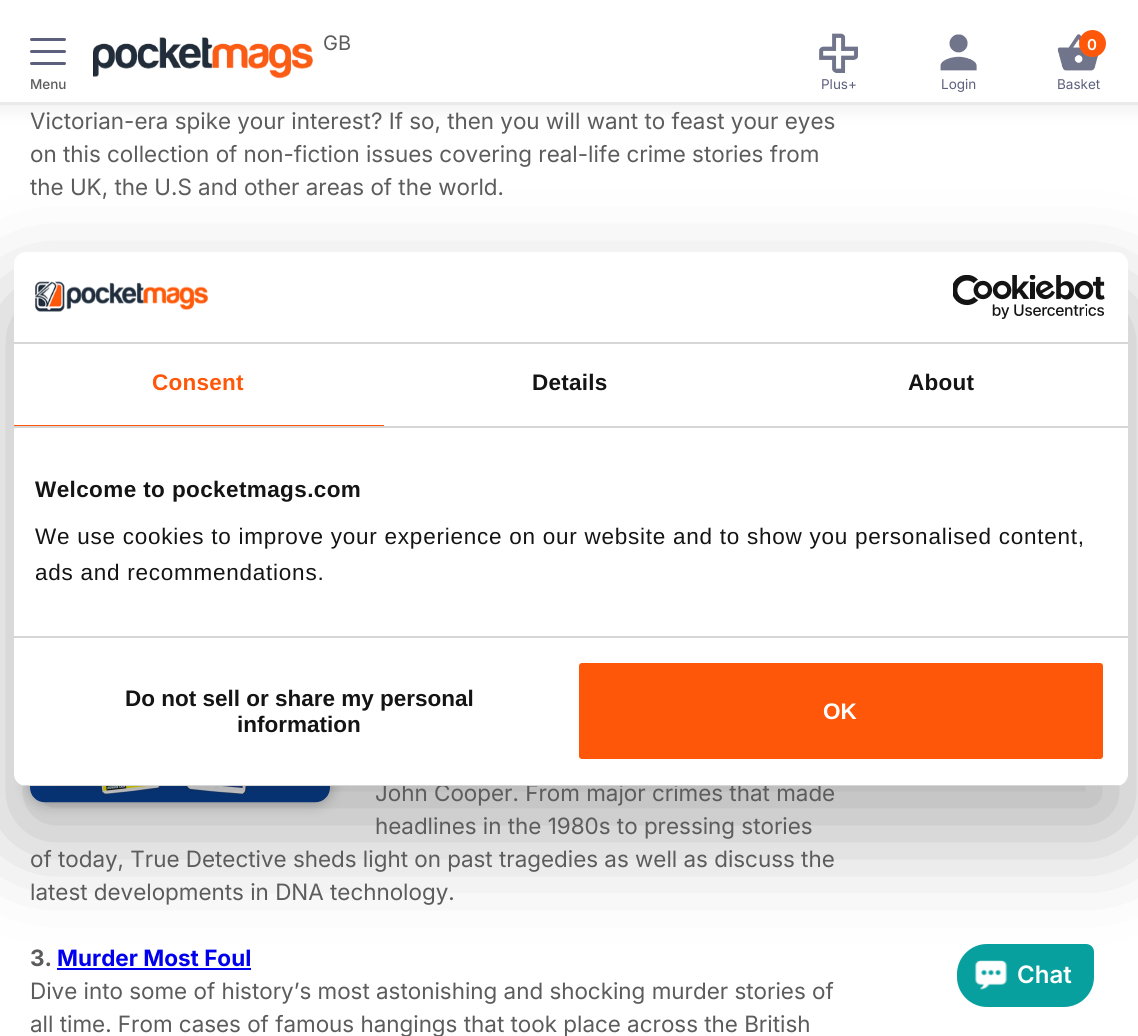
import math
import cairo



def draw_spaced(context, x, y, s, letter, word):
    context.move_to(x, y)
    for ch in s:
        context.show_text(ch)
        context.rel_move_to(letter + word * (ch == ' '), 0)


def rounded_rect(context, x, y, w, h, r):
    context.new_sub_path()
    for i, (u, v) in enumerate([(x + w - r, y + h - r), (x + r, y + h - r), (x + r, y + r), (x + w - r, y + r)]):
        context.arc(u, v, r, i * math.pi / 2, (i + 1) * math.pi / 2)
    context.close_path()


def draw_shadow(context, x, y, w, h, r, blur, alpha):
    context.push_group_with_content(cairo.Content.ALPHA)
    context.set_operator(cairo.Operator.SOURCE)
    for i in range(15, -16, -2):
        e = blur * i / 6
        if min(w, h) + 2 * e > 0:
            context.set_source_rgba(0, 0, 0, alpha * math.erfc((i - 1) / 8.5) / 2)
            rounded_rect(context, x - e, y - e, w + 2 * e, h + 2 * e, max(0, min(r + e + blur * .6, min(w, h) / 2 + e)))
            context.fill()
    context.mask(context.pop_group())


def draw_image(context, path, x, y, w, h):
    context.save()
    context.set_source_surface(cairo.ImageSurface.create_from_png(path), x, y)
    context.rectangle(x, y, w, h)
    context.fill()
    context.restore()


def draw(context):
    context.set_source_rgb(1, 1, 1)
    context.paint()
    context.set_source_rgb(0, 0, 0)
    draw_shadow(context, -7, -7, 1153, 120, 0, 7.5, 0.05)
    context.set_source_rgb(1, 1, 1)
    context.rectangle(0, 0, 1138, 102)
    context.fill()
    context.set_source_rgb(234 / 255, 234 / 255, 234 / 255)
    context.rectangle(0, 102, 1138, 3)
    context.fill()
    context.set_source_rgb(92 / 255, 96 / 255, 124 / 255)
    rounded_rect(context, 30, 38, 36, 3, 1.5)
    context.fill()
    rounded_rect(context, 30, 50, 36, 3, 1.5)
    context.fill()
    rounded_rect(context, 30, 62, 36, 3, 1.5)
    context.fill()
    draw_image(context, "images/1.png", 93, 37, 220, 42)
    draw_image(context, "images/2.png", 819, 33, 39, 40)
    draw_image(context, "images/3.png", 940, 34, 37, 37)
    draw_image(context, "images/4.png", 1057, 34, 41, 37)
    context.set_source_rgb(1, 88 / 255, 10 / 255)
    context.arc(1092.5, 43.5, 13.5, 0, 2 * math.pi)
    context.fill()
    context.set_source_rgb(0, 0, 0)
    draw_shadow(context, 30, 645, 300, 158, 15, 7.5, 0.3)
    draw_image(context, "images/5.png", 30, 786, 300, 17)
    context.set_source_rgb(0, 0, 238 / 255)
    context.rectangle(57, 968, 194, 2)
    context.fill()
    context.set_source_rgb(7 / 255, 160 / 255, 158 / 255)
    context.new_path()
    context.move_to(987, 944)
    context.line_to(1086, 944)
    context.curve_to(1090.5, 944, 1094, 947.5, 1094, 952)
    context.line_to(1094, 977)
    context.curve_to(1094, 993.5, 1080.5, 1007, 1064, 1007)
    context.line_to(987, 1007)
    context.curve_to(970.5, 1007, 957, 993.5, 957, 977)
    context.line_to(957, 974)
    context.curve_to(957, 957.5, 970.5, 944, 987, 944)
    context.close_path()
    context.fill()
    draw_image(context, "images/6.png", 974, 960, 34, 30)
    context.set_source_rgb(0, 0, 0)
    draw_shadow(context, 14, 300, 1114, 534, 12, 51, 0.3)
    context.select_font_face("Inter Medium")
    context.set_font_size(13.5)
    context.set_source_rgb(92 / 255, 92 / 255, 92 / 255)
    context.move_to(30, 89)
    context.show_text("Menu")
    context.select_font_face("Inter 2")
    context.set_font_size(20)
    context.move_to(323, 50)
    context.show_text("GB")
    context.set_font_size(13.5)
    context.set_source_rgb(92 / 255, 96 / 255, 124 / 255)
    context.move_to(821, 89)
    context.show_text("Plus+")
    context.move_to(941, 89)
    context.show_text("Login")
    context.select_font_face("Inter SemiBold")
    context.set_font_size(15)
    context.set_source_rgb(1, 1, 1)
    context.move_to(1087, 50)
    context.show_text("0")
    context.select_font_face("Inter 2")
    context.set_font_size(13.5)
    context.set_source_rgb(92 / 255, 96 / 255, 124 / 255)
    context.move_to(1057, 89)
    context.show_text("Basket")
    context.select_font_face("Inter")
    context.set_font_size(22.5)
    context.set_source_rgb(92 / 255, 92 / 255, 92 / 255)
    context.move_to(30, 129)
    context.show_text("Victorian-era spike your interest? If so, then you will want to feast your eyes")
    context.move_to(30, 162)
    context.show_text("on this collection of non-fiction issues covering real-life crime stories from")
    context.move_to(30, 195)
    context.show_text("the UK, the U.S and other areas of the world.")
    context.move_to(375, 801)
    context.show_text("John Cooper. From major crimes that made")
    context.move_to(375, 834)
    context.show_text("headlines in the 1980s to pressing stories")
    context.move_to(30, 867)
    context.show_text("of today, True Detective sheds light on past tragedies as well as discuss the")
    context.move_to(30, 900)
    context.show_text("latest developments in DNA technology.")
    context.select_font_face("Inter", cairo.FontSlant.NORMAL, cairo.FontWeight.BOLD)
    context.move_to(30, 966)
    context.show_text("3.")
    context.set_source_rgb(0, 0, 238 / 255)
    context.move_to(57, 966)
    context.show_text("Murder Most Foul")
    context.select_font_face("Inter")
    context.set_source_rgb(92 / 255, 92 / 255, 92 / 255)
    context.move_to(30, 999)
    context.show_text("Dive into some of history’s most astonishing and shocking murder stories of")
    context.move_to(30, 1032)
    context.show_text("all time. From cases of famous hangings that took place across the British")
    context.select_font_face("Inter SemiBold")
    context.set_font_size(24)
    context.set_source_rgb(1, 1, 1)
    context.move_to(1017, 983)
    context.show_text("Chat")
    rounded_rect(context, 14, 252, 1114, 534, 12)
    context.fill()
    context.set_source_rgb(214 / 255, 214 / 255, 214 / 255)
    context.rectangle(14, 342, 1114, 2)
    context.fill()
    draw_image(context, "images/7.png", 35, 281, 173, 31)
    draw_image(context, "images/8.png", 953, 275, 152, 44)
    context.rectangle(14, 426, 1114, 2)
    context.fill()
    context.set_source_rgb(1, 87 / 255, 9 / 255)
    context.rectangle(14, 425, 370, 1)
    context.fill()
    context.select_font_face("Liberation Sans", cairo.FontSlant.NORMAL, cairo.FontWeight.BOLD)
    context.set_font_size(22.5)
    draw_spaced(context, 152, 390, "Consent", 0.25, 0)
    context.set_source_rgb(20 / 255, 20 / 255, 20 / 255)
    draw_spaced(context, 532, 390, "Details", 0.25, 0)
    draw_spaced(context, 908, 390, "About", 0.25, 0)
    context.set_source_rgb(214 / 255, 214 / 255, 214 / 255)
    context.rectangle(14, 636, 1114, 2)
    context.fill()
    context.set_source_rgb(20 / 255, 20 / 255, 20 / 255)
    draw_spaced(context, 35, 497, "Welcome to pocketmags.com", 0.4, 0)
    context.select_font_face("Liberation Sans")
    draw_spaced(context, 35, 544, "We use cookies to improve your experience on our website and to show you personalised content,", 0.75, 0)
    draw_spaced(context, 35, 580, "ads and recommendations.", 0.75, 0)
    context.save()
    rounded_rect(context, 14, 252, 1114, 534, 12)
    context.clip()
    context.set_source_rgb(214 / 255, 214 / 255, 214 / 255)
    context.rectangle(14, 785, 1114, 1)
    context.fill()
    context.restore()
    context.select_font_face("Liberation Sans", cairo.FontSlant.NORMAL, cairo.FontWeight.BOLD)
    context.move_to(125, 706)
    context.show_text("Do not sell or share my personal")
    context.move_to(237, 732)
    context.show_text("information")
    context.set_source_rgb(1, 87 / 255, 9 / 255)
    rounded_rect(context, 577.5, 661.5, 527, 99, 4.5)
    context.fill_preserve()
    context.set_source_rgb(1, 1, 1)
    context.set_line_width(3)
    context.stroke()
    context.move_to(823, 719)
    context.show_text("OK")


surface = cairo.ImageSurface(cairo.Format.RGB24, 1138, 1036)
context = cairo.Context(surface)
options = cairo.FontOptions()
options.set_hint_metrics(cairo.HintMetrics.OFF)
options.set_hint_style(cairo.HintStyle.NONE)
context.set_font_options(options)
context.set_miter_limit(4)
draw(context)
surface.write_to_png("out.png")
